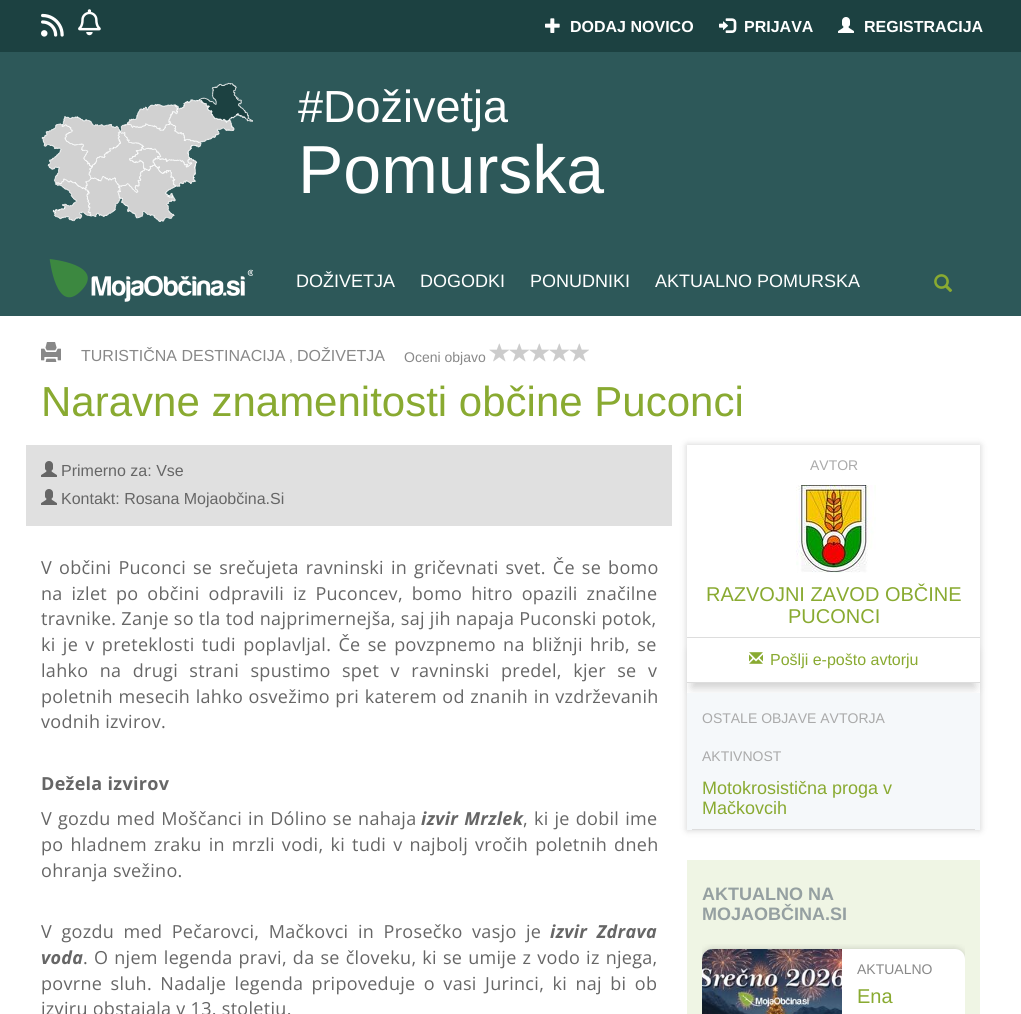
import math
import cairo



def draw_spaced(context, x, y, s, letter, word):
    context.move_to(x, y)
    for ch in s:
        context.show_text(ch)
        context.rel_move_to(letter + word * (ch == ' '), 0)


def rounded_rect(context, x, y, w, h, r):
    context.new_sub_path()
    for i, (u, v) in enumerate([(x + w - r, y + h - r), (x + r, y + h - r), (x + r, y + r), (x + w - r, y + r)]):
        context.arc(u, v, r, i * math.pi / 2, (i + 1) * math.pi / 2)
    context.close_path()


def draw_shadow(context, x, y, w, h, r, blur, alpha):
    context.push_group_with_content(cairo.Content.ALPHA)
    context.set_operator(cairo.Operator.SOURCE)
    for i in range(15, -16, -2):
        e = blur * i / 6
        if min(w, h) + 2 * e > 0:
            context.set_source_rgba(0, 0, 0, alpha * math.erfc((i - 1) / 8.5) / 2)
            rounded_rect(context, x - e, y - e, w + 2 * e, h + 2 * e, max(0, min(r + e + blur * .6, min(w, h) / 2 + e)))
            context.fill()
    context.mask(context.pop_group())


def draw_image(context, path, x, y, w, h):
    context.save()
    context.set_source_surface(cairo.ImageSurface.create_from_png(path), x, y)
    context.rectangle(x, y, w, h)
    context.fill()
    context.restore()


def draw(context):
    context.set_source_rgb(1, 1, 1)
    context.paint()
    context.set_source_rgb(45 / 255, 88 / 255, 89 / 255)
    context.rectangle(0, 52, 1021, 264)
    context.fill()
    context.set_source_rgb(28 / 255, 65 / 255, 65 / 255)
    context.rectangle(0, 0, 1021, 52)
    context.fill()
    draw_image(context, "images/1.png", 41, 13, 23, 24)
    draw_image(context, "images/2.png", 78, 9, 23, 27)
    draw_image(context, "images/3.png", 545, 18, 15, 15)
    draw_image(context, "images/4.png", 719, 18, 18, 15)
    draw_image(context, "images/5.png", 838, 17, 16, 16)
    draw_image(context, "images/6.png", 41, 82, 212, 140)
    draw_image(context, "images/7.png", 49, 259, 204, 43)
    draw_image(context, "images/8.png", 934, 274, 19, 18)
    draw_image(context, "images/9.png", 41, 342, 20, 20)
    draw_image(context, "images/10.png", 489, 343, 20, 19)
    draw_image(context, "images/10.png", 509, 343, 20, 19)
    draw_image(context, "images/10.png", 529, 343, 20, 19)
    draw_image(context, "images/10.png", 549, 343, 20, 19)
    draw_image(context, "images/10.png", 569, 343, 20, 19)
    context.set_source_rgb(224 / 255, 224 / 255, 224 / 255)
    context.rectangle(26, 445, 646, 81)
    context.fill()
    draw_image(context, "images/11.png", 41, 461, 16, 16)
    draw_image(context, "images/11.png", 41, 489, 16, 16)
    context.save()
    context.set_fill_rule(cairo.FillRule.EVEN_ODD)
    context.new_path()
    context.move_to(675, 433)
    context.line_to(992, 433)
    context.line_to(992, 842)
    context.line_to(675, 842)
    context.close_path()
    context.move_to(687, 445)
    context.line_to(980, 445)
    context.line_to(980, 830)
    context.line_to(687, 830)
    context.close_path()
    context.clip()
    context.set_source_rgb(0, 0, 0)
    draw_shadow(context, 687, 445, 293, 385, 0, 3.5, 0.19)
    context.restore()
    draw_image(context, "images/12.png", 796, 485, 80, 88)
    context.save()
    context.set_fill_rule(cairo.FillRule.EVEN_ODD)
    context.new_path()
    context.move_to(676, 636)
    context.line_to(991, 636)
    context.line_to(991, 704)
    context.line_to(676, 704)
    context.close_path()
    context.move_to(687, 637)
    context.line_to(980, 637)
    context.line_to(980, 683)
    context.line_to(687, 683)
    context.close_path()
    context.clip()
    context.set_source_rgb(0, 0, 0)
    draw_shadow(context, 692, 652, 283, 36, 0, 5, 0.19)
    context.restore()
    context.set_source_rgb(221 / 255, 221 / 255, 221 / 255)
    context.rectangle(687, 637, 293, 1)
    context.fill()
    context.rectangle(687, 682, 293, 1)
    context.fill()
    draw_image(context, "images/13.png", 749, 652, 14, 12)
    context.set_source_rgb(245 / 255, 248 / 255, 250 / 255)
    context.rectangle(687, 693, 293, 137)
    context.fill()
    context.set_source_rgb(221 / 255, 221 / 255, 221 / 255)
    context.rectangle(692, 829, 283, 1)
    context.fill()
    context.set_source_rgb(239 / 255, 245 / 255, 228 / 255)
    context.rectangle(687, 860, 293, 154)
    context.fill()
    context.save()
    context.rectangle(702, 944, 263, 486)
    context.clip()
    context.set_source_rgb(0, 0, 0)
    draw_shadow(context, 702, 949, 263, 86, 10, 3.5, 0.19)
    context.restore()
    context.set_source_rgb(1, 1, 1)
    rounded_rect(context, 702, 949, 263, 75, 10)
    context.fill()
    draw_image(context, "images/14.png", 702, 949, 140, 65)
    context.select_font_face("Liberation Sans", cairo.FontSlant.NORMAL, cairo.FontWeight.BOLD)
    context.set_font_size(16)
    context.move_to(570, 32)
    context.show_text("DODAJ NOVICO")
    context.move_to(744, 32)
    context.show_text("PRIJAVA")
    context.move_to(864, 32)
    context.show_text("REGISTRACIJA")
    context.select_font_face("Liberation Sans")
    context.set_font_size(45)
    context.move_to(298, 122)
    context.show_text("#Doživetja")
    context.set_font_size(68)
    context.move_to(298, 193)
    context.show_text("Pomurska")
    context.set_font_size(18)
    context.move_to(296, 287)
    context.show_text("DOŽIVETJA")
    context.move_to(420, 287)
    context.show_text("DOGODKI")
    context.move_to(530, 287)
    context.show_text("PONUDNIKI")
    context.move_to(655, 287)
    context.show_text("AKTUALNO POMURSKA")
    context.set_font_size(16)
    context.set_source_rgb(136 / 255, 136 / 255, 136 / 255)
    context.move_to(81, 361)
    context.show_text("TURISTIČNA DESTINACIJA")
    context.set_font_size(14)
    context.move_to(289, 361)
    context.show_text(",")
    context.set_font_size(16)
    context.move_to(297, 361)
    context.show_text("DOŽIVETJA")
    context.set_font_size(14)
    context.move_to(404, 362)
    context.show_text("Oceni objavo")
    context.set_font_size(42)
    context.set_source_rgb(137 / 255, 170 / 255, 49 / 255)
    context.move_to(41, 416)
    context.show_text("Naravne znamenitosti občine Puconci")
    context.set_font_size(16)
    context.set_source_rgb(102 / 255, 102 / 255, 102 / 255)
    context.move_to(61, 476)
    context.show_text("Primerno za: Vse")
    context.move_to(61, 504)
    context.show_text("Kontakt: Rosana Mojaobčina.Si")
    context.select_font_face("Open Sans")
    context.set_font_size(18)
    draw_spaced(context, 41, 574, "V občini Puconci se srečujeta ravninski in gričevnati svet. Če se bomo", 0.3, 2)
    draw_spaced(context, 41, 600, "na izlet po občini odpravili iz Puconcev, bomo hitro opazili značilne", 0.3, 3.9)
    draw_spaced(context, 41, 625, "travnike. Zanje so tla tod najprimernejša, saj jih napaja Puconski potok,", 0.3, 0)
    draw_spaced(context, 41, 651, "ki je v preteklosti tudi poplavljal. Če se povzpnemo na bližnji hrib, se", 0.3, 2.25)
    draw_spaced(context, 41, 677, "lahko na drugi strani spustimo spet v ravninski predel, kjer se v", 0.3, 6.4)
    draw_spaced(context, 41, 703, "poletnih mesecih lahko osvežimo pri katerem od znanih in vzdrževanih", 0.3, 0.5)
    draw_spaced(context, 41, 728, "vodnih izvirov.", 0.3, 0)
    context.select_font_face("Open Sans", cairo.FontSlant.NORMAL, cairo.FontWeight.BOLD)
    draw_spaced(context, 41, 790, "Dežela izvirov", 0.3, 0)
    context.select_font_face("Open Sans")
    draw_spaced(context, 41, 825, "V gozdu med Moščanci in Dólino se nahaja", 0.3, 1)
    context.select_font_face("Open Sans", cairo.FontSlant.ITALIC, cairo.FontWeight.BOLD)
    draw_spaced(context, 421, 825, "izvir Mrzlek", 0.3, 1)
    context.select_font_face("Open Sans")
    draw_spaced(context, 523, 825, ", ki je dobil ime", 0.3, 1)
    draw_spaced(context, 41, 851, "po hladnem zraku in mrzli vodi, ki tudi v najbolj vročih poletnih dneh", 0.3, 2)
    draw_spaced(context, 41, 877, "ohranja svežino.", 0.3, 0)
    draw_spaced(context, 41, 938, "V gozdu med Pečarovci, Mačkovci in Prosečko vasjo je", 0.3, 4.5)
    context.select_font_face("Open Sans", cairo.FontSlant.ITALIC, cairo.FontWeight.BOLD)
    draw_spaced(context, 550, 938, "izvir Zdrava", 0.3, 4.5)
    draw_spaced(context, 41, 964, "voda", 0.3, 0)
    context.select_font_face("Open Sans")
    draw_spaced(context, 83, 964, ". O njem legenda pravi, da se človeku, ki se umije z vodo iz njega,", 0.3, 1)
    draw_spaced(context, 41, 990, "povrne sluh. Nadalje legenda pripoveduje o vasi Jurinci, ki naj bi ob", 0.3, 3.4)
    draw_spaced(context, 41, 1015, "izviru obstajala v 13. stoletju.", 0.3, 0)
    context.select_font_face("Liberation Sans")
    context.set_font_size(14)
    context.set_source_rgb(170 / 255, 170 / 255, 170 / 255)
    context.move_to(810, 470)
    context.show_text("AVTOR")
    context.set_font_size(20)
    context.set_source_rgb(137 / 255, 170 / 255, 49 / 255)
    context.move_to(706, 601)
    context.show_text("RAZVOJNI ZAVOD OBČINE")
    context.move_to(788, 623)
    context.show_text("PUCONCI")
    context.set_font_size(16)
    context.move_to(770, 665)
    context.show_text("Pošlji e-pošto avtorju")
    context.set_font_size(14)
    context.set_source_rgb(170 / 255, 170 / 255, 170 / 255)
    context.move_to(702, 723)
    context.show_text("OSTALE OBJAVE AVTORJA")
    context.move_to(702, 761)
    context.show_text("AKTIVNOST")
    context.set_font_size(18)
    context.set_source_rgb(137 / 255, 170 / 255, 49 / 255)
    context.move_to(702, 794)
    context.show_text("Motokrosistična proga v")
    context.move_to(702, 814)
    context.show_text("Mačkovcih")
    context.select_font_face("Liberation Sans", cairo.FontSlant.NORMAL, cairo.FontWeight.BOLD)
    context.set_source_rgb(149 / 255, 160 / 255, 161 / 255)
    context.move_to(702, 900)
    context.show_text("AKTUALNO NA")
    context.move_to(702, 920)
    context.show_text("MOJAOBČINA.SI")
    context.select_font_face("Liberation Sans")
    context.set_font_size(14)
    context.set_source_rgb(136 / 255, 136 / 255, 136 / 255)
    context.move_to(857, 974)
    context.show_text("AKTUALNO")
    context.set_font_size(20)
    context.set_source_rgb(137 / 255, 170 / 255, 49 / 255)
    context.move_to(857, 1003)
    context.show_text("Ena")


surface = cairo.ImageSurface(cairo.Format.RGB24, 1021, 1014)
context = cairo.Context(surface)
options = cairo.FontOptions()
options.set_hint_metrics(cairo.HintMetrics.OFF)
options.set_hint_style(cairo.HintStyle.NONE)
context.set_font_options(options)
context.set_miter_limit(4)
draw(context)
surface.write_to_png("out.png")
